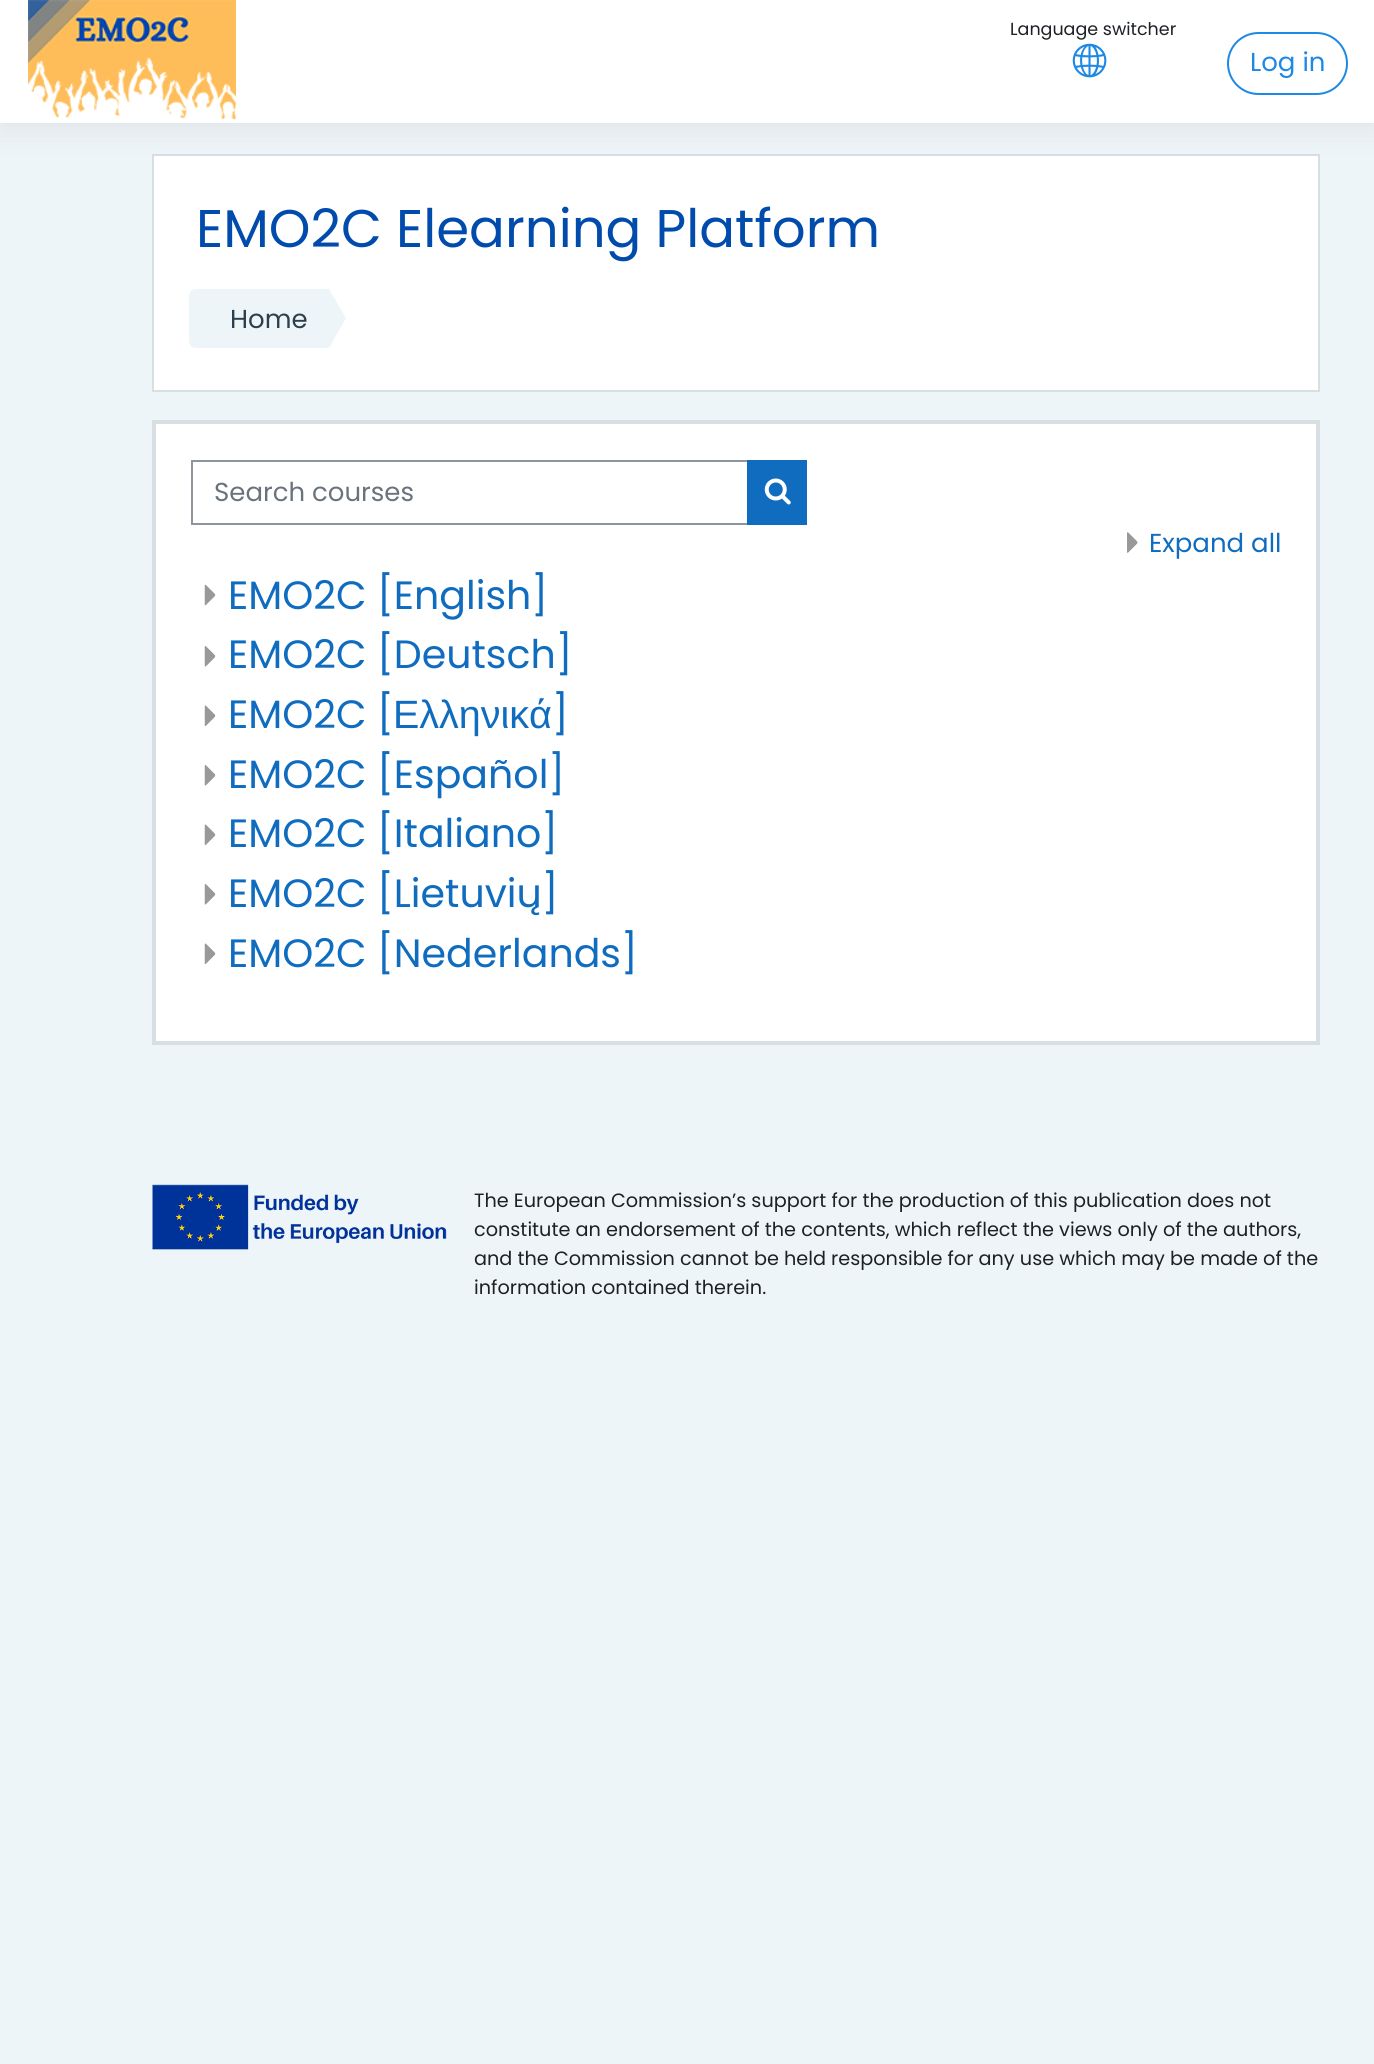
import math
import cairo



def rounded_rect(context, x, y, w, h, r):
    context.new_sub_path()
    for i, (u, v) in enumerate([(x + w - r, y + h - r), (x + r, y + h - r), (x + r, y + r), (x + w - r, y + r)]):
        context.arc(u, v, r, i * math.pi / 2, (i + 1) * math.pi / 2)
    context.close_path()


def draw_shadow(context, x, y, w, h, r, blur, alpha):
    context.push_group_with_content(cairo.Content.ALPHA)
    context.set_operator(cairo.Operator.SOURCE)
    for i in range(15, -16, -2):
        e = blur * i / 6
        if min(w, h) + 2 * e > 0:
            context.set_source_rgba(0, 0, 0, alpha * math.erfc((i - 1) / 8.5) / 2)
            rounded_rect(context, x - e, y - e, w + 2 * e, h + 2 * e, max(0, min(r + e + blur * .6, min(w, h) / 2 + e)))
            context.fill()
    context.mask(context.pop_group())


def draw_image(context, path, x, y, w, h):
    context.save()
    context.set_source_surface(cairo.ImageSurface.create_from_png(path), x, y)
    context.rectangle(x, y, w, h)
    context.fill()
    context.restore()


def draw(context):
    context.set_source_rgb(238 / 255, 245 / 255, 249 / 255)
    context.paint()
    context.set_source_rgb(1, 1, 1)
    context.rectangle(153, 155, 1166, 236)
    context.fill_preserve()
    context.set_source_rgb(215 / 255, 223 / 255, 227 / 255)
    context.stroke()
    context.set_source_rgb(0, 0, 0)
    draw_shadow(context, 0, 0, 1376, 123, 0, 17.5, 0.1)
    context.set_source_rgb(1, 1, 1)
    context.rectangle(0, 0, 1374, 123)
    context.fill()
    draw_image(context, "images/1.png", 28, 0, 208, 121)
    draw_image(context, "images/2.png", 1072, 43, 35, 35)
    rounded_rect(context, 1228, 33, 119, 61, 30.5)
    context.set_source_rgb(30 / 255, 136 / 255, 229 / 255)
    context.stroke()
    context.set_source_rgb(238 / 255, 245 / 255, 249 / 255)
    context.new_path()
    context.move_to(196, 289)
    context.line_to(329, 289)
    context.line_to(329, 348)
    context.line_to(196, 348)
    context.curve_to(192, 348, 189, 345, 189, 341)
    context.line_to(189, 296)
    context.curve_to(189, 292, 192, 289, 196, 289)
    context.close_path()
    context.fill()
    context.new_path()
    context.move_to(329, 348)
    context.line_to(329, 289)
    context.line_to(346, 318)
    context.close_path()
    context.fill()
    context.rectangle(153, 421, 1166, 623)
    context.set_source_rgb(215 / 255, 223 / 255, 227 / 255)
    context.stroke()
    context.set_source_rgb(1, 1, 1)
    context.rectangle(155, 423, 1162, 619)
    context.fill_preserve()
    context.set_source_rgb(215 / 255, 223 / 255, 227 / 255)
    context.stroke()
    context.rectangle(192, 461, 556, 63)
    context.set_source_rgb(143 / 255, 149 / 255, 158 / 255)
    context.stroke()
    context.set_source_rgb(15 / 255, 108 / 255, 191 / 255)
    context.rectangle(747, 460, 60, 65)
    context.fill()
    draw_image(context, "images/3.png", 764, 478, 27, 27)
    draw_image(context, "images/4.png", 1127, 532, 11, 21)
    draw_image(context, "images/5.png", 204, 584, 12, 22)
    draw_image(context, "images/6.png", 204, 646, 12, 21)
    draw_image(context, "images/7.png", 204, 705, 12, 21)
    draw_image(context, "images/8.png", 204, 765, 12, 21)
    draw_image(context, "images/7.png", 204, 824, 12, 21)
    draw_image(context, "images/6.png", 204, 884, 12, 21)
    draw_image(context, "images/7.png", 204, 943, 12, 21)
    draw_image(context, "images/9.png", 152, 1184, 295, 66)
    context.select_font_face("Poppins")
    context.set_font_size(17.5)
    context.set_source_rgb(29 / 255, 33 / 255, 37 / 255)
    context.move_to(1010, 35)
    context.show_text("Language switcher")
    context.set_font_size(26)
    context.set_source_rgb(30 / 255, 136 / 255, 229 / 255)
    context.move_to(1250, 71)
    context.show_text("Log in")
    context.set_font_size(53)
    context.set_source_rgb(0, 75 / 255, 172 / 255)
    context.move_to(196, 247)
    context.show_text("EMO2C Elearning Platform")
    context.set_font_size(26)
    context.set_source_rgb(44 / 255, 63 / 255, 76 / 255)
    context.move_to(230, 328)
    context.show_text("Home")
    context.set_source_rgb(106 / 255, 115 / 255, 123 / 255)
    context.move_to(214, 501)
    context.show_text("Search courses")
    context.set_source_rgb(15 / 255, 108 / 255, 191 / 255)
    context.move_to(1149, 552)
    context.show_text("Expand all")
    context.set_font_size(39.5)
    context.move_to(228, 609)
    context.show_text("EMO2C [English]")
    context.move_to(228, 668)
    context.show_text("EMO2C [Deutsch]")
    context.move_to(228, 728)
    context.show_text("EMO2C [")
    context.select_font_face("Liberation Sans")
    context.move_to(393, 728)
    context.show_text("Ελληνικά")
    context.select_font_face("Poppins")
    context.move_to(552, 728)
    context.show_text("]")
    context.move_to(228, 788)
    context.show_text("EMO2C [Español]")
    context.move_to(228, 847)
    context.show_text("EMO2C [Italiano]")
    context.move_to(228, 907)
    context.show_text("EMO2C [Lietuvių]")
    context.move_to(228, 967)
    context.show_text("EMO2C [Nederlands]")
    context.set_font_size(19.25)
    context.set_source_rgb(29 / 255, 33 / 255, 37 / 255)
    context.move_to(474, 1207)
    context.show_text("The European Commission’s support for the production of this publication does not")
    context.move_to(474, 1236)
    context.show_text("constitute an endorsement of the contents, which reflect the views only of the authors,")
    context.move_to(474, 1265)
    context.show_text("and the Commission cannot be held responsible for any use which may be made of the")
    context.move_to(474, 1294)
    context.show_text("information contained therein.")


surface = cairo.ImageSurface(cairo.Format.RGB24, 1374, 2064)
context = cairo.Context(surface)
options = cairo.FontOptions()
options.set_hint_metrics(cairo.HintMetrics.OFF)
options.set_hint_style(cairo.HintStyle.NONE)
context.set_font_options(options)
context.set_miter_limit(4)
draw(context)
surface.write_to_png("out.png")
